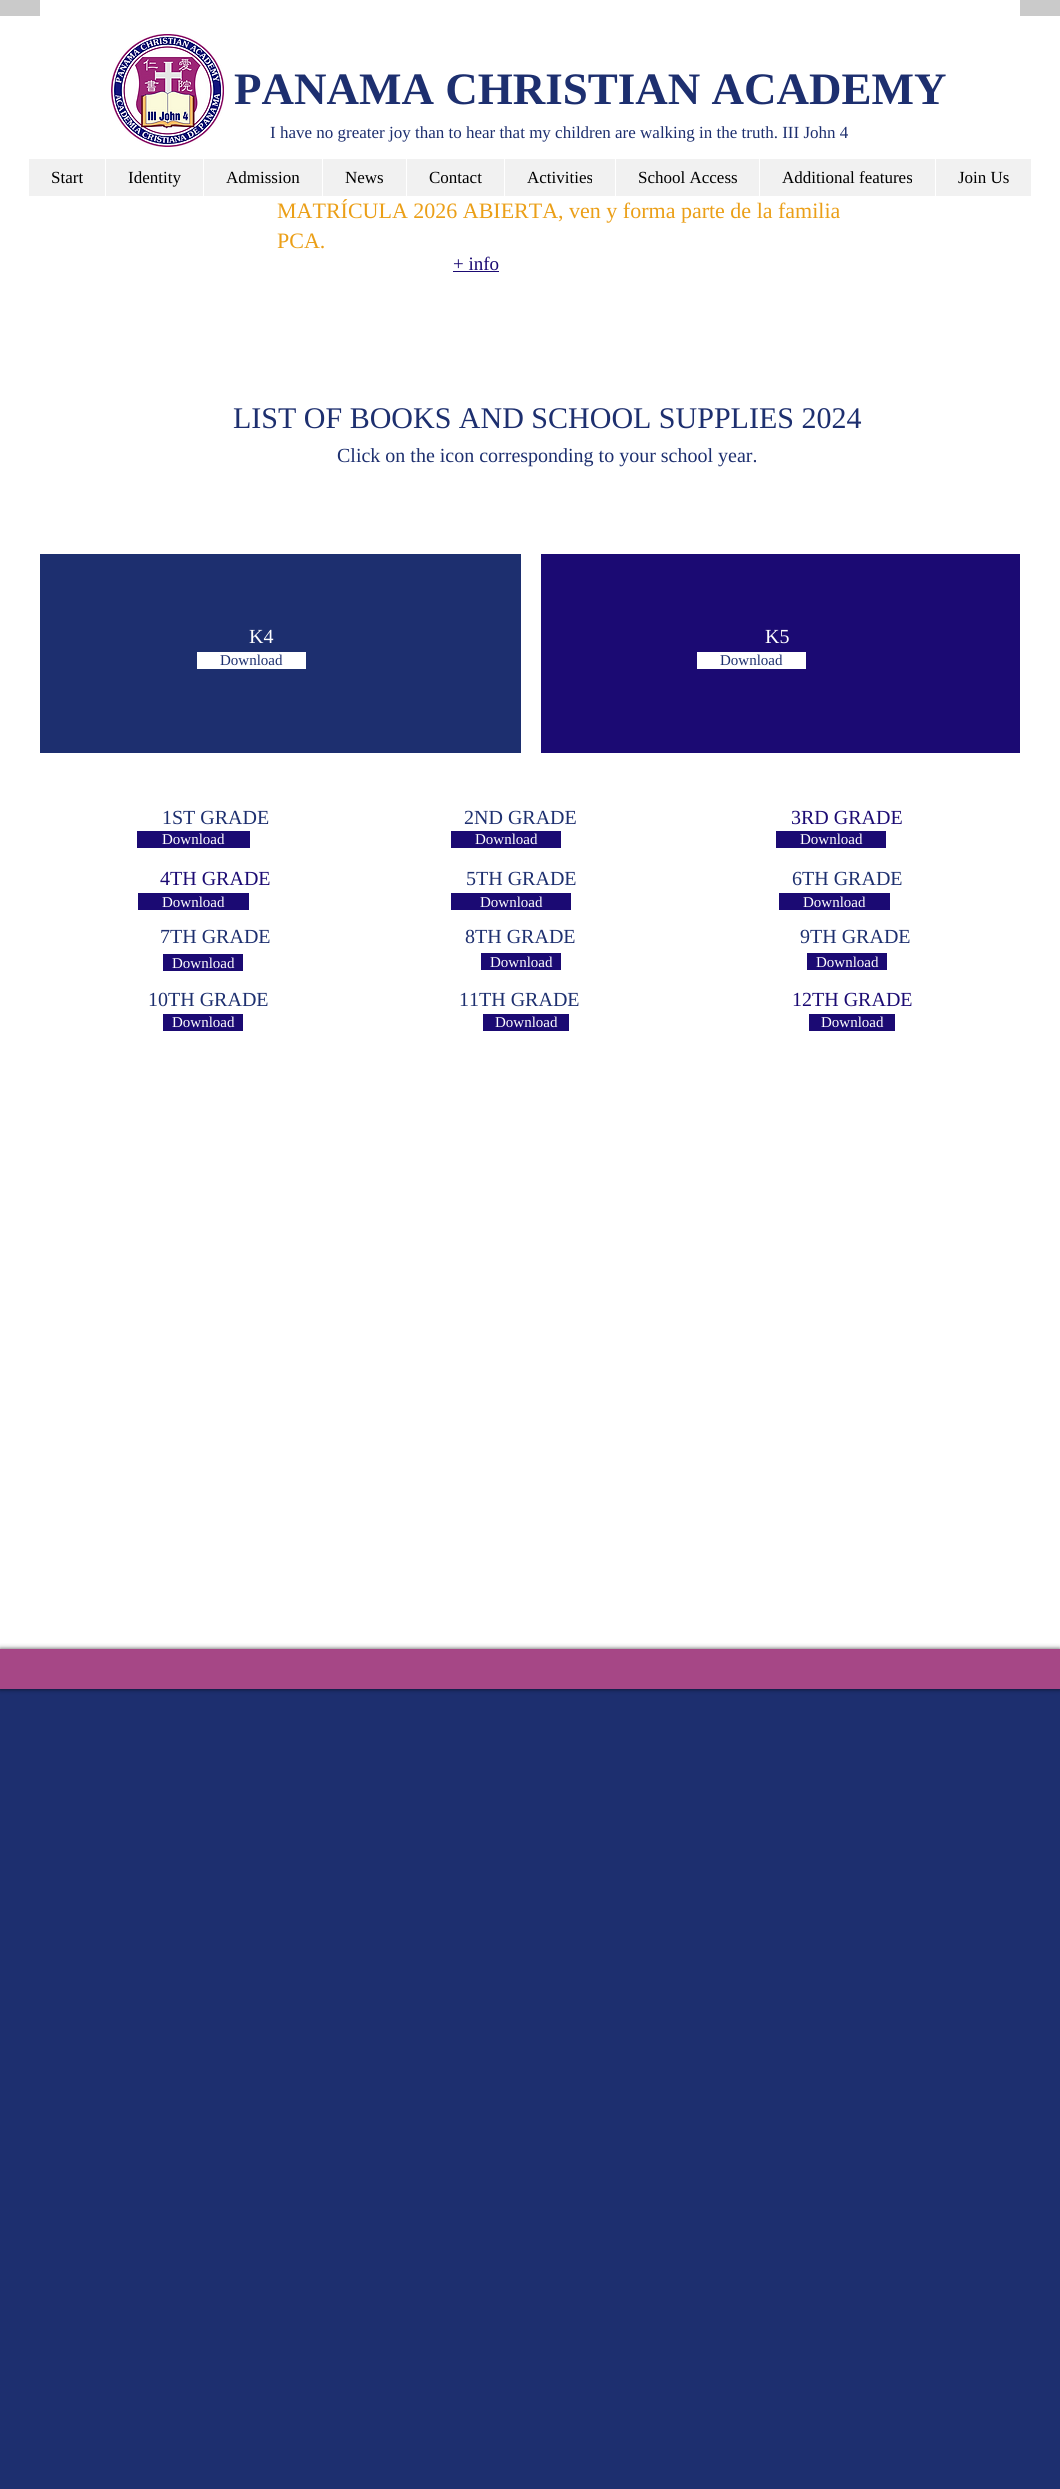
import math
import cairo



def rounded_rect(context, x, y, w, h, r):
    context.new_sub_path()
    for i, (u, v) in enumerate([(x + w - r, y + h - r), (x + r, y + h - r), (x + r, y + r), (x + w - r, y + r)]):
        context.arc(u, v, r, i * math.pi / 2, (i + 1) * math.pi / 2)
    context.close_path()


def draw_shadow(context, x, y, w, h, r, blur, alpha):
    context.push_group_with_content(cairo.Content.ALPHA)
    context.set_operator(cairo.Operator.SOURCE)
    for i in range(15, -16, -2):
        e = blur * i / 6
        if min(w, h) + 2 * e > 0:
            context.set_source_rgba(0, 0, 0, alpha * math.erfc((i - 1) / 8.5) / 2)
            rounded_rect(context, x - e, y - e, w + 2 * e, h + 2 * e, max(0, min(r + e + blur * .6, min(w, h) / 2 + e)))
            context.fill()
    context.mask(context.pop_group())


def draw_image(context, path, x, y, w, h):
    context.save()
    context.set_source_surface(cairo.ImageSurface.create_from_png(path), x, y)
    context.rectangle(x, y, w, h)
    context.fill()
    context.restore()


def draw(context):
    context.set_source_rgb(29 / 255, 47 / 255, 111 / 255)
    context.paint()
    context.set_source_rgb(202 / 255, 202 / 255, 202 / 255)
    context.rectangle(0, 0, 1060, 16)
    context.fill()
    context.set_source_rgb(1, 1, 1)
    context.rectangle(40, 0, 980, 16)
    context.fill()
    context.rectangle(0, 16, 1060, 1633)
    context.fill()
    draw_image(context, "images/1.png", 111, 34, 113, 113)
    context.set_source_rgb(241 / 255, 241 / 255, 241 / 255)
    context.rectangle(29, 159, 1002, 37)
    context.fill()
    context.set_source_rgb(1, 1, 1)
    context.rectangle(105, 159, 1, 37)
    context.fill()
    context.rectangle(203, 159, 1, 37)
    context.fill()
    context.rectangle(322, 159, 1, 37)
    context.fill()
    context.rectangle(406, 159, 1, 37)
    context.fill()
    context.rectangle(504, 159, 1, 37)
    context.fill()
    context.rectangle(615, 159, 1, 37)
    context.fill()
    context.rectangle(759, 159, 1, 37)
    context.fill()
    context.rectangle(935, 159, 1, 37)
    context.fill()
    context.set_source_rgb(27 / 255, 10 / 255, 115 / 255)
    context.rectangle(453, 271, 46, 1)
    context.fill()
    context.set_source_rgb(29 / 255, 47 / 255, 111 / 255)
    context.rectangle(40, 554, 481, 199)
    context.fill()
    context.set_source_rgb(1, 1, 1)
    context.rectangle(197, 652, 109, 17)
    context.fill()
    context.set_source_rgb(27 / 255, 10 / 255, 115 / 255)
    context.rectangle(541, 554, 479, 199)
    context.fill()
    context.set_source_rgb(1, 1, 1)
    context.rectangle(697, 652, 109, 17)
    context.fill()
    context.set_source_rgb(27 / 255, 10 / 255, 115 / 255)
    context.rectangle(137, 831, 113, 17)
    context.fill()
    context.rectangle(451, 831, 110, 17)
    context.fill()
    context.rectangle(776, 831, 110, 17)
    context.fill()
    context.rectangle(138, 893, 111, 17)
    context.fill()
    context.rectangle(451, 893, 120, 17)
    context.fill()
    context.rectangle(779, 893, 111, 17)
    context.fill()
    context.rectangle(163, 954, 80, 17)
    context.fill()
    context.rectangle(481, 953, 80, 17)
    context.fill()
    context.rectangle(807, 953, 80, 17)
    context.fill()
    context.rectangle(163, 1014, 80, 17)
    context.fill()
    context.rectangle(483, 1014, 86, 17)
    context.fill()
    context.rectangle(809, 1014, 86, 17)
    context.fill()
    context.set_source_rgb(0, 0, 0)
    draw_shadow(context, 0, 1649, 1060, 40, 0, 2.5, 0.7)
    context.set_source_rgb(166 / 255, 71 / 255, 134 / 255)
    context.rectangle(0, 1649, 1060, 40)
    context.fill()
    context.select_font_face("Liberation Serif", cairo.FontSlant.NORMAL, cairo.FontWeight.BOLD)
    context.set_font_size(45)
    context.set_source_rgb(29 / 255, 47 / 255, 111 / 255)
    context.move_to(234, 104)
    context.show_text("PANAMA CHRISTIAN ACADEMY")
    context.select_font_face("Liberation Serif")
    context.set_font_size(17)
    context.move_to(270, 138)
    context.show_text("I have no greater joy than to hear that my children are walking in the truth. III John 4")
    context.set_source_rgb(0, 0, 0)
    context.move_to(51, 183)
    context.show_text("Start")
    context.move_to(128, 183)
    context.show_text("Identity")
    context.move_to(226, 183)
    context.show_text("Admission")
    context.move_to(345, 183)
    context.show_text("News")
    context.move_to(429, 183)
    context.show_text("Contact")
    context.move_to(527, 183)
    context.show_text("Activities")
    context.move_to(638, 183)
    context.show_text("School Access")
    context.move_to(782, 183)
    context.show_text("Additional features")
    context.move_to(958, 183)
    context.show_text("Join Us")
    context.set_font_size(22)
    context.set_source_rgb(235 / 255, 159 / 255, 23 / 255)
    context.move_to(277, 218)
    context.show_text("MATRÍCULA 2026 ABIERTA, ven y forma parte de la familia")
    context.move_to(277, 248)
    context.show_text("PCA.")
    context.set_font_size(19)
    context.set_source_rgb(27 / 255, 10 / 255, 115 / 255)
    context.move_to(453, 270)
    context.show_text("+ info")
    context.set_font_size(30)
    context.set_source_rgb(29 / 255, 47 / 255, 111 / 255)
    context.move_to(233, 428)
    context.show_text("LIST OF BOOKS AND SCHOOL SUPPLIES 2024")
    context.set_font_size(20)
    context.move_to(337, 462)
    context.show_text("Click on the icon corresponding to your school year.")
    context.set_source_rgb(1, 1, 1)
    context.move_to(249, 643)
    context.show_text("K4")
    context.set_font_size(15)
    context.set_source_rgb(29 / 255, 47 / 255, 111 / 255)
    context.move_to(220, 665)
    context.show_text("Download")
    context.set_font_size(20)
    context.set_source_rgb(1, 1, 1)
    context.move_to(765, 643)
    context.show_text("K5")
    context.set_font_size(15)
    context.set_source_rgb(29 / 255, 47 / 255, 111 / 255)
    context.move_to(720, 665)
    context.show_text("Download")
    context.set_font_size(20)
    context.move_to(162, 824)
    context.show_text("1ST GRADE")
    context.move_to(464, 824)
    context.show_text("2ND GRADE")
    context.set_source_rgb(27 / 255, 10 / 255, 115 / 255)
    context.move_to(791, 824)
    context.show_text("3RD GRADE")
    context.set_font_size(15)
    context.set_source_rgb(1, 1, 1)
    context.move_to(162, 844)
    context.show_text("Download")
    context.move_to(475, 844)
    context.show_text("Download")
    context.move_to(800, 844)
    context.show_text("Download")
    context.set_font_size(20)
    context.set_source_rgb(27 / 255, 10 / 255, 115 / 255)
    context.move_to(160, 885)
    context.show_text("4TH GRADE")
    context.set_source_rgb(29 / 255, 47 / 255, 111 / 255)
    context.move_to(466, 885)
    context.show_text("5TH GRADE")
    context.move_to(792, 885)
    context.show_text("6TH GRADE")
    context.set_font_size(15)
    context.set_source_rgb(1, 1, 1)
    context.move_to(162, 907)
    context.show_text("Download")
    context.move_to(480, 907)
    context.show_text("Download")
    context.move_to(803, 907)
    context.show_text("Download")
    context.set_font_size(20)
    context.set_source_rgb(29 / 255, 47 / 255, 111 / 255)
    context.move_to(160, 943)
    context.show_text("7TH GRADE")
    context.move_to(465, 943)
    context.show_text("8TH GRADE")
    context.move_to(800, 943)
    context.show_text("9TH GRADE")
    context.set_font_size(15)
    context.set_source_rgb(1, 1, 1)
    context.move_to(172, 968)
    context.show_text("Download")
    context.move_to(490, 967)
    context.show_text("Download")
    context.move_to(816, 967)
    context.show_text("Download")
    context.set_font_size(20)
    context.set_source_rgb(29 / 255, 47 / 255, 111 / 255)
    context.move_to(148, 1006)
    context.show_text("10TH GRADE")
    context.move_to(459, 1006)
    context.show_text("11TH GRADE")
    context.set_source_rgb(27 / 255, 10 / 255, 115 / 255)
    context.move_to(792, 1006)
    context.show_text("12TH GRADE")
    context.set_font_size(15)
    context.set_source_rgb(1, 1, 1)
    context.move_to(172, 1027)
    context.show_text("Download")
    context.move_to(495, 1027)
    context.show_text("Download")
    context.move_to(821, 1027)
    context.show_text("Download")


surface = cairo.ImageSurface(cairo.Format.RGB24, 1060, 2489)
context = cairo.Context(surface)
options = cairo.FontOptions()
options.set_hint_metrics(cairo.HintMetrics.OFF)
options.set_hint_style(cairo.HintStyle.NONE)
context.set_font_options(options)
context.set_miter_limit(4)
draw(context)
surface.write_to_png("out.png")
